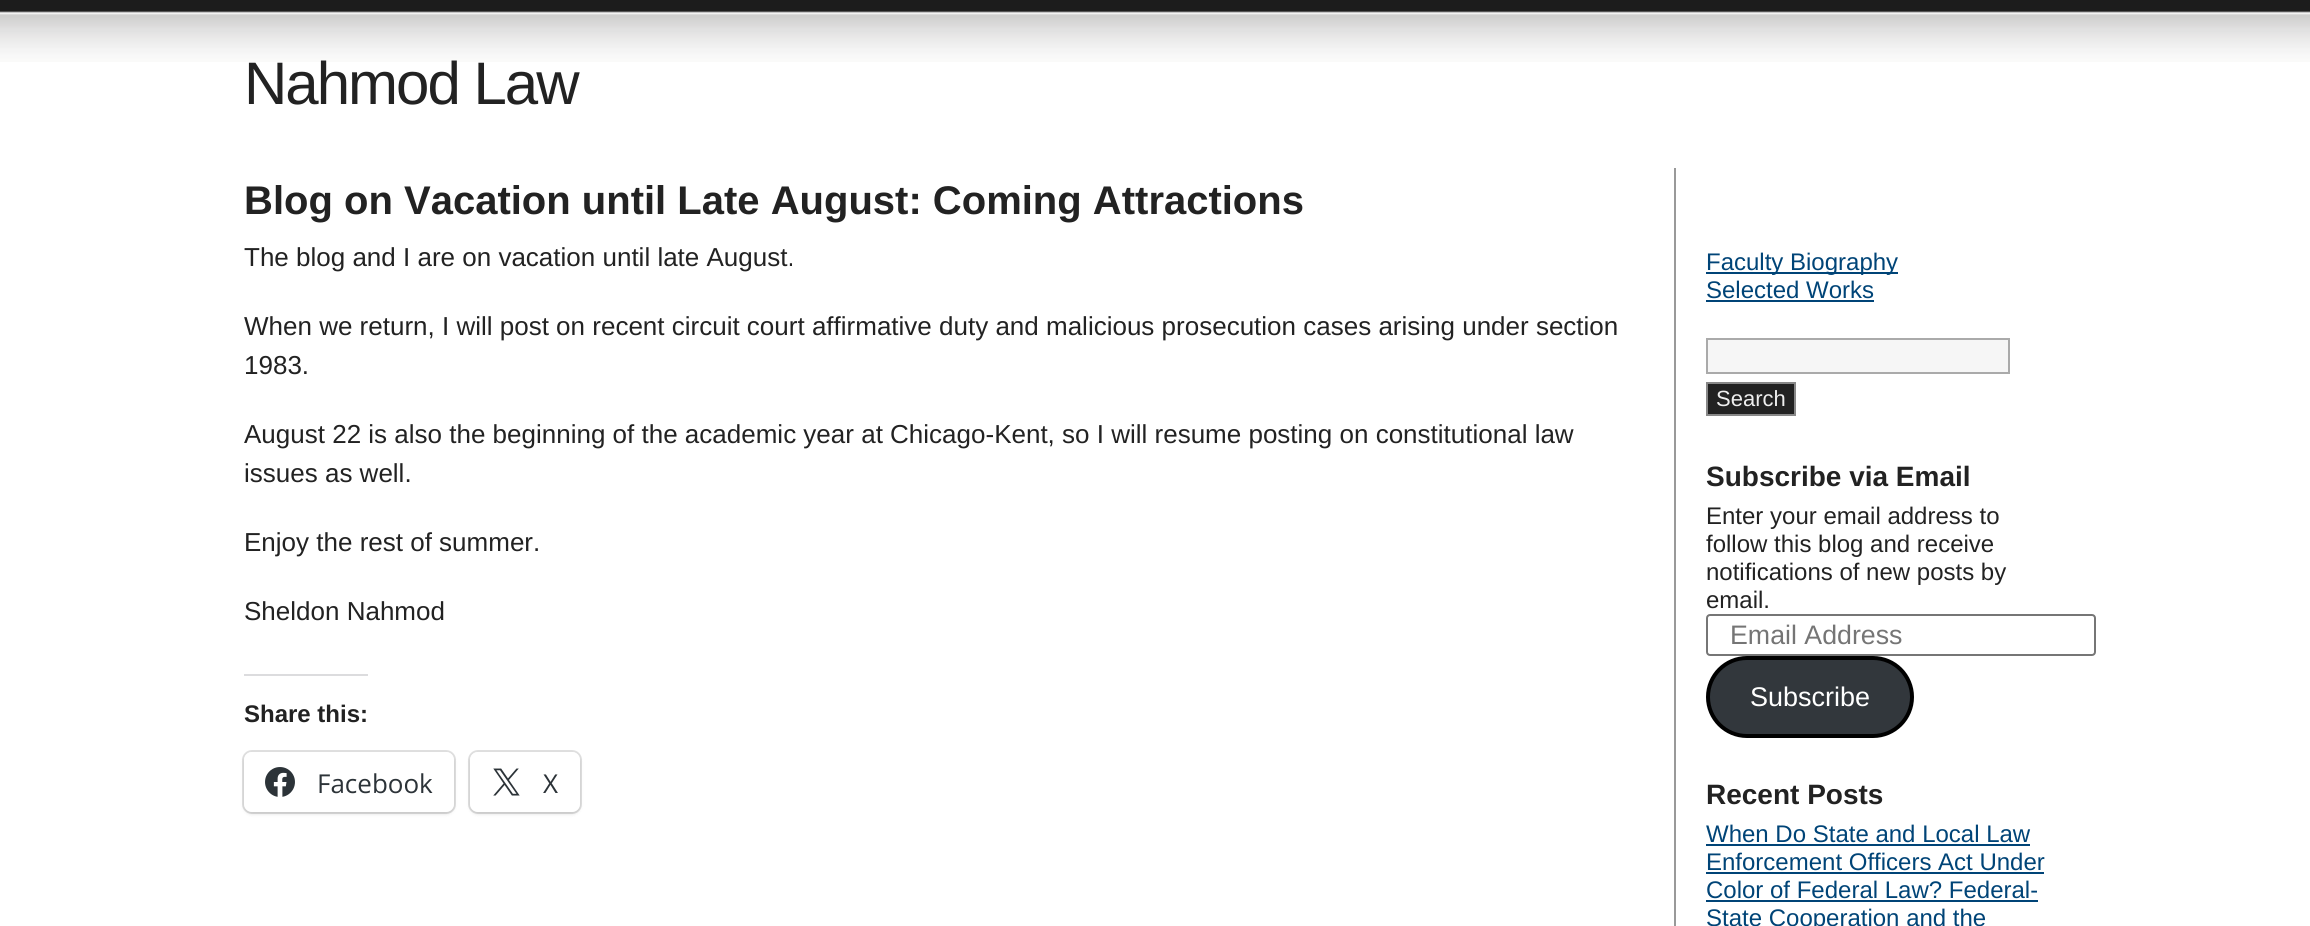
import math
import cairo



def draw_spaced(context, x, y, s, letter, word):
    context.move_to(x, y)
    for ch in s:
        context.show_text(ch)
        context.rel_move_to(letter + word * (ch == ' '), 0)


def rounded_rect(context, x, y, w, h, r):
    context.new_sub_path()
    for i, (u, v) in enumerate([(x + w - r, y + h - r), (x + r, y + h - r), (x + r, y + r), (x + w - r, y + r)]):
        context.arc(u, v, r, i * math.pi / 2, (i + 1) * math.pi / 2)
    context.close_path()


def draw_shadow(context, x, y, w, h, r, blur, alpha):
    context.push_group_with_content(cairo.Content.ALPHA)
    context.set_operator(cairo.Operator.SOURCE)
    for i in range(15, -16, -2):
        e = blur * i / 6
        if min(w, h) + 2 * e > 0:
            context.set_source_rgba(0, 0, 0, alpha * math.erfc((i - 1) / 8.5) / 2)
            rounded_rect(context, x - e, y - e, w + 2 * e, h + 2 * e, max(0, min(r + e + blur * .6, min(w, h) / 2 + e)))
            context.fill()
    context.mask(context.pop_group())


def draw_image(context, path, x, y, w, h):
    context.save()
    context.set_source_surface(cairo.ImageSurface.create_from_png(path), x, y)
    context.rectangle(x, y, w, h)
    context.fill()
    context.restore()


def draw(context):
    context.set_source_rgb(1, 1, 1)
    context.paint()
    draw_image(context, "images/1.png", 0, 0, 2310, 62)
    context.set_source_rgb(220 / 255, 220 / 255, 222 / 255)
    context.rectangle(244, 674, 124, 2)
    context.fill()
    rounded_rect(context, 243, 751, 212, 62, 9)
    context.set_source_rgb(224 / 255, 224 / 255, 224 / 255)
    context.stroke()
    context.set_source_rgb(0, 0, 0)
    draw_shadow(context, 244, 754, 210, 60, 8, 2, 0.12)
    context.set_source_rgb(1, 1, 1)
    rounded_rect(context, 244, 752, 210, 60, 8)
    context.fill()
    draw_image(context, "images/2.png", 265, 767, 30, 30)
    rounded_rect(context, 469, 751, 112, 62, 9)
    context.set_source_rgb(224 / 255, 224 / 255, 224 / 255)
    context.stroke()
    context.set_source_rgb(0, 0, 0)
    draw_shadow(context, 470, 754, 110, 60, 8, 2, 0.12)
    context.set_source_rgb(1, 1, 1)
    rounded_rect(context, 470, 752, 110, 60, 8)
    context.fill()
    draw_image(context, "images/3.png", 493, 768, 27, 28)
    context.set_source_rgb(153 / 255, 153 / 255, 153 / 255)
    context.rectangle(1674, 168, 2, 758)
    context.fill()
    context.set_source_rgb(0, 68 / 255, 119 / 255)
    context.rectangle(1706, 272, 192, 2)
    context.fill()
    context.rectangle(1706, 300, 168, 2)
    context.fill()
    context.set_source_rgb(246 / 255, 246 / 255, 246 / 255)
    context.rectangle(1707, 339, 302, 34)
    context.fill_preserve()
    context.set_source_rgb(170 / 255, 170 / 255, 170 / 255)
    context.stroke()
    context.set_source_rgb(34 / 255, 34 / 255, 34 / 255)
    context.rectangle(1707, 383, 88, 32)
    context.fill_preserve()
    context.set_source_rgb(136 / 255, 136 / 255, 136 / 255)
    context.stroke()
    rounded_rect(context, 1707, 615, 388, 40, 3)
    context.set_source_rgb(118 / 255, 118 / 255, 118 / 255)
    context.stroke()
    context.set_source_rgb(50 / 255, 55 / 255, 60 / 255)
    rounded_rect(context, 1708, 658, 204, 78, 39)
    context.fill_preserve()
    context.set_source_rgb(0, 0, 0)
    context.set_line_width(4)
    context.stroke()
    context.set_source_rgb(0, 68 / 255, 119 / 255)
    context.rectangle(1706, 844, 324, 2)
    context.fill()
    context.rectangle(1706, 872, 338, 2)
    context.fill()
    context.rectangle(1706, 900, 332, 2)
    context.fill()
    context.select_font_face("Liberation Sans")
    context.set_font_size(60)
    context.set_source_rgb(34 / 255, 34 / 255, 34 / 255)
    draw_spaced(context, 244, 104, "Nahmod Law", -2, 0)
    context.select_font_face("Liberation Sans", cairo.FontSlant.NORMAL, cairo.FontWeight.BOLD)
    context.set_font_size(40)
    context.move_to(244, 214)
    context.show_text("Blog on Vacation until Late August: Coming Attractions")
    context.select_font_face("Liberation Sans")
    context.set_font_size(26)
    context.move_to(244, 266)
    context.show_text("The blog and I are on vacation until late August.")
    context.move_to(244, 335)
    context.show_text("When we return, I will post on recent circuit court affirmative duty and malicious prosecution cases arising under section")
    context.move_to(244, 374)
    context.show_text("1983.")
    context.move_to(244, 443)
    context.show_text("August 22 is also the beginning of the academic year at Chicago-Kent, so I will resume posting on constitutional law")
    context.move_to(244, 482)
    context.show_text("issues as well.")
    context.move_to(244, 551)
    context.show_text("Enjoy the rest of summer.")
    context.move_to(244, 620)
    context.show_text("Sheldon Nahmod")
    context.select_font_face("Liberation Sans", cairo.FontSlant.NORMAL, cairo.FontWeight.BOLD)
    context.set_font_size(24)
    context.move_to(244, 722)
    context.show_text("Share this:")
    context.select_font_face("Open Sans")
    context.set_font_size(26)
    context.set_source_rgb(44 / 255, 51 / 255, 56 / 255)
    context.move_to(317, 793)
    context.show_text("Facebook")
    context.move_to(543, 793)
    context.show_text("X")
    context.select_font_face("Liberation Sans")
    context.set_font_size(24)
    context.set_source_rgb(0, 68 / 255, 119 / 255)
    context.move_to(1706, 270)
    context.show_text("Faculty Biography")
    context.move_to(1706, 298)
    context.show_text("Selected Works")
    context.set_font_size(22)
    context.set_source_rgb(238 / 255, 238 / 255, 238 / 255)
    context.move_to(1716, 406)
    context.show_text("Search")
    context.select_font_face("Liberation Sans", cairo.FontSlant.NORMAL, cairo.FontWeight.BOLD)
    context.set_font_size(28)
    context.set_source_rgb(34 / 255, 34 / 255, 34 / 255)
    context.move_to(1706, 486)
    context.show_text("Subscribe via Email")
    context.select_font_face("Liberation Sans")
    context.set_font_size(24)
    context.move_to(1706, 524)
    context.show_text("Enter your email address to")
    context.move_to(1706, 552)
    context.show_text("follow this blog and receive")
    context.move_to(1706, 580)
    context.show_text("notifications of new posts by")
    context.move_to(1706, 608)
    context.show_text("email.")
    context.set_font_size(26.75)
    context.set_source_rgb(117 / 255, 117 / 255, 117 / 255)
    context.move_to(1730, 644)
    context.show_text("Email Address")
    context.set_font_size(27)
    context.set_source_rgb(1, 1, 1)
    context.move_to(1750, 706)
    context.show_text("Subscribe")
    context.select_font_face("Liberation Sans", cairo.FontSlant.NORMAL, cairo.FontWeight.BOLD)
    context.set_font_size(28)
    context.set_source_rgb(34 / 255, 34 / 255, 34 / 255)
    context.move_to(1706, 804)
    context.show_text("Recent Posts")
    context.select_font_face("Liberation Sans")
    context.set_font_size(24)
    context.set_source_rgb(0, 68 / 255, 119 / 255)
    context.move_to(1706, 842)
    context.show_text("When Do State and Local Law")
    context.move_to(1706, 870)
    context.show_text("Enforcement Officers Act Under")
    context.move_to(1706, 898)
    context.show_text("Color of Federal Law? Federal-")
    context.move_to(1706, 926)
    context.show_text("State Cooperation and the")


surface = cairo.ImageSurface(cairo.Format.RGB24, 2310, 926)
context = cairo.Context(surface)
options = cairo.FontOptions()
options.set_hint_metrics(cairo.HintMetrics.OFF)
options.set_hint_style(cairo.HintStyle.NONE)
context.set_font_options(options)
context.set_miter_limit(4)
draw(context)
surface.write_to_png("out.png")
